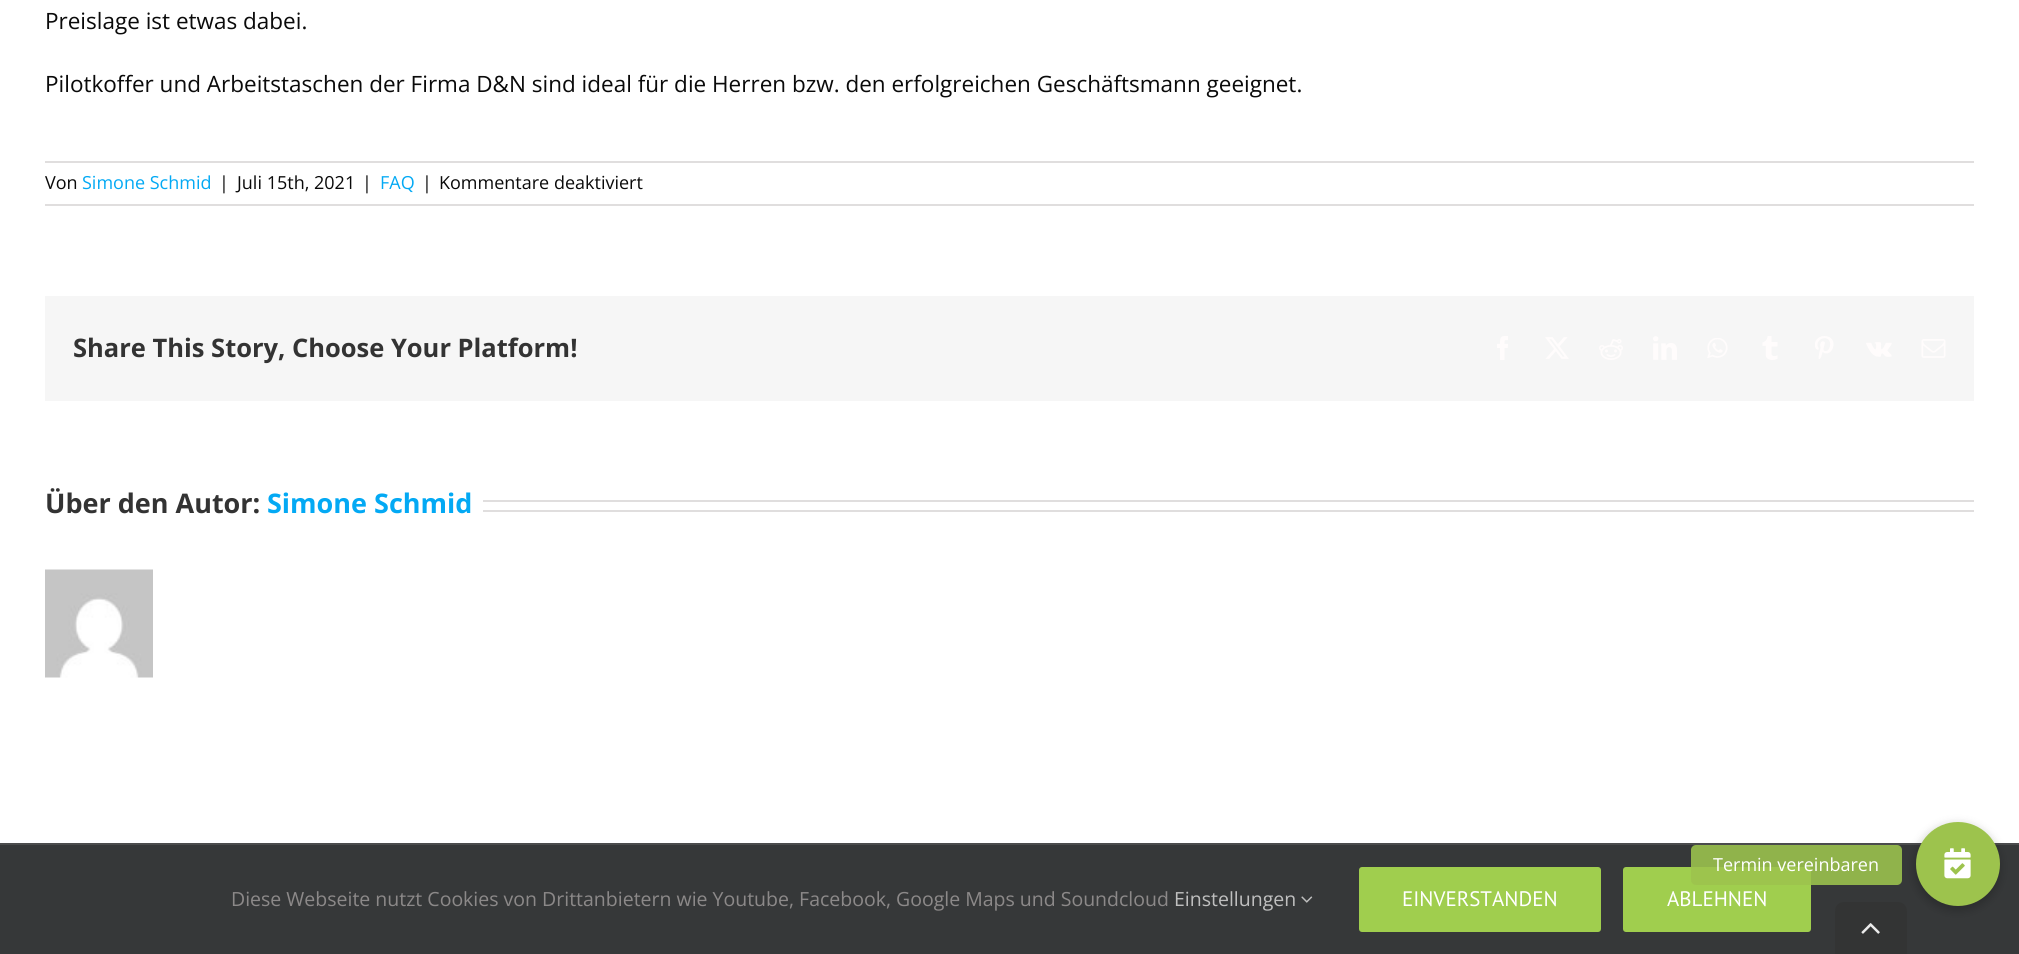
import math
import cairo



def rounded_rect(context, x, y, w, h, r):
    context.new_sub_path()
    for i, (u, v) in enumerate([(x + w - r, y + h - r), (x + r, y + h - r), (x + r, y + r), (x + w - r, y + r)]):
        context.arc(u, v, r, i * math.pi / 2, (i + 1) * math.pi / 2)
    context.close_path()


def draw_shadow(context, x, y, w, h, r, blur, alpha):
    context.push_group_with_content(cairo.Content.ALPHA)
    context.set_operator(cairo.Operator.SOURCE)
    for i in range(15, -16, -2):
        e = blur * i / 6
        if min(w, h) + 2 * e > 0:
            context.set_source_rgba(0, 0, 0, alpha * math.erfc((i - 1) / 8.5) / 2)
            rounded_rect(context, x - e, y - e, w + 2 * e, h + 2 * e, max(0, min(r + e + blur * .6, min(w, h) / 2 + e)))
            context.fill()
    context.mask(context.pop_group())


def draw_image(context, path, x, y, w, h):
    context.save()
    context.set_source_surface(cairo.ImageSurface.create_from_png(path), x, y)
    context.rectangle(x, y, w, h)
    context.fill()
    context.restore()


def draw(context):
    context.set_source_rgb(1, 1, 1)
    context.paint()
    context.set_source_rgb(224 / 255, 222 / 255, 222 / 255)
    context.rectangle(45, 161, 1929, 2)
    context.fill()
    context.rectangle(45, 204, 1929, 2)
    context.fill()
    context.set_source_rgb(246 / 255, 246 / 255, 246 / 255)
    context.rectangle(45, 296, 1929, 105)
    context.fill()
    draw_image(context, "images/1.png", 1497, 336, 11, 24)
    draw_image(context, "images/2.png", 1545, 337, 24, 22)
    draw_image(context, "images/3.png", 1599, 339, 24, 21)
    draw_image(context, "images/4.png", 1653, 336, 24, 24)
    draw_image(context, "images/5.png", 1707, 338, 21, 20)
    draw_image(context, "images/6.png", 1762, 336, 16, 24)
    draw_image(context, "images/7.png", 1815, 336, 19, 23)
    draw_image(context, "images/8.png", 1866, 342, 26, 15)
    draw_image(context, "images/9.png", 1921, 339, 25, 19)
    context.set_source_rgb(224 / 255, 222 / 255, 222 / 255)
    context.rectangle(483, 500, 1491, 2)
    context.fill()
    context.rectangle(483, 510, 1491, 2)
    context.fill()
    draw_image(context, "images/10.png", 45, 569, 108, 109)
    context.set_source_rgb(75 / 255, 76 / 255, 77 / 255)
    context.rectangle(0, 843, 2019, 2)
    context.fill()
    context.set_source_rgb(54 / 255, 56 / 255, 57 / 255)
    context.rectangle(0, 845, 2019, 109)
    context.fill()
    context.set_source_rgb(0, 0, 0)
    draw_shadow(context, 1914, 824, 87, 87, 43.5, 4.5, 0.2)
    context.set_source_rgb(157 / 255, 195 / 255, 77 / 255)
    context.arc(1958, 864, 42, 0, 2 * math.pi)
    context.fill()
    context.set_source_rgb(160 / 255, 206 / 255, 78 / 255)
    rounded_rect(context, 1623, 867, 188, 65, 3)
    context.fill()
    context.set_source_rgba(157 / 255, 195 / 255, 77 / 255, 0.88)
    rounded_rect(context, 1691, 845, 211, 40, 5)
    context.fill()
    draw_image(context, "images/11.png", 1944, 848, 27, 31)
    draw_image(context, "images/12.png", 1301, 896, 12, 7)
    context.set_source_rgb(160 / 255, 206 / 255, 78 / 255)
    rounded_rect(context, 1359, 867, 242, 65, 3)
    context.fill()
    context.set_source_rgb(51 / 255, 52 / 255, 52 / 255)
    context.new_path()
    context.move_to(1844, 902)
    context.line_to(1898, 902)
    context.curve_to(1903, 902, 1907, 906, 1907, 911)
    context.line_to(1907, 954)
    context.line_to(1835, 954)
    context.line_to(1835, 911)
    context.curve_to(1835, 906, 1839, 902, 1844, 902)
    context.close_path()
    context.fill()
    draw_image(context, "images/13.png", 1861, 923, 19, 11)
    context.select_font_face("Open Sans")
    context.set_font_size(22.5)
    context.set_source_rgb(10 / 255, 10 / 255, 10 / 255)
    context.move_to(45, 29)
    context.show_text("Preislage ist etwas dabei.")
    context.move_to(45, 92)
    context.show_text("Pilotkoffer und Arbeitstaschen der Firma D&N sind ideal für die Herren bzw. den erfolgreichen Geschäftsmann geeignet.")
    context.set_font_size(18)
    context.move_to(45, 189)
    context.show_text("Von")
    context.set_source_rgb(3 / 255, 169 / 255, 244 / 255)
    context.move_to(82, 189)
    context.show_text("Simone Schmid")
    context.set_source_rgb(10 / 255, 10 / 255, 10 / 255)
    context.move_to(219, 189)
    context.show_text("|")
    context.move_to(237, 189)
    context.show_text("Juli 15th, 2021")
    context.move_to(362, 189)
    context.show_text("|")
    context.set_source_rgb(3 / 255, 169 / 255, 244 / 255)
    context.move_to(380, 189)
    context.show_text("FAQ")
    context.set_source_rgb(10 / 255, 10 / 255, 10 / 255)
    context.move_to(422, 189)
    context.show_text("|")
    context.move_to(439, 189)
    context.show_text("Kommentare deaktiviert")
    context.select_font_face("Open Sans", cairo.FontSlant.NORMAL, cairo.FontWeight.BOLD)
    context.set_font_size(25.5)
    context.set_source_rgb(51 / 255, 51 / 255, 51 / 255)
    context.move_to(73, 357)
    context.show_text("Share This Story, Choose Your Platform!")
    context.set_font_size(27)
    context.move_to(45, 513)
    context.show_text("Über den Autor:")
    context.set_source_rgb(3 / 255, 169 / 255, 244 / 255)
    context.move_to(267, 513)
    context.show_text("Simone Schmid")
    context.select_font_face("Open Sans")
    context.set_font_size(18)
    context.set_source_rgb(1, 1, 1)
    context.move_to(1713, 871)
    context.show_text("Termin vereinbaren")
    context.set_font_size(19.5)
    context.set_source_rgb(140 / 255, 137 / 255, 137 / 255)
    context.move_to(231, 906)
    context.show_text("Diese Webseite nutzt Cookies von Drittanbietern wie Youtube, Facebook, Google Maps und Soundcloud")
    context.set_source_rgb(191 / 255, 191 / 255, 191 / 255)
    context.move_to(1174, 906)
    context.show_text("Einstellungen")
    context.select_font_face("PT Sans")
    context.set_font_size(21)
    context.set_source_rgb(1, 1, 1)
    context.move_to(1402, 906)
    context.show_text("EINVERSTANDEN")
    context.move_to(1667, 906)
    context.show_text("ABLEHNEN")


surface = cairo.ImageSurface(cairo.Format.RGB24, 2019, 954)
context = cairo.Context(surface)
options = cairo.FontOptions()
options.set_hint_metrics(cairo.HintMetrics.OFF)
options.set_hint_style(cairo.HintStyle.NONE)
context.set_font_options(options)
context.set_miter_limit(4)
draw(context)
surface.write_to_png("out.png")
